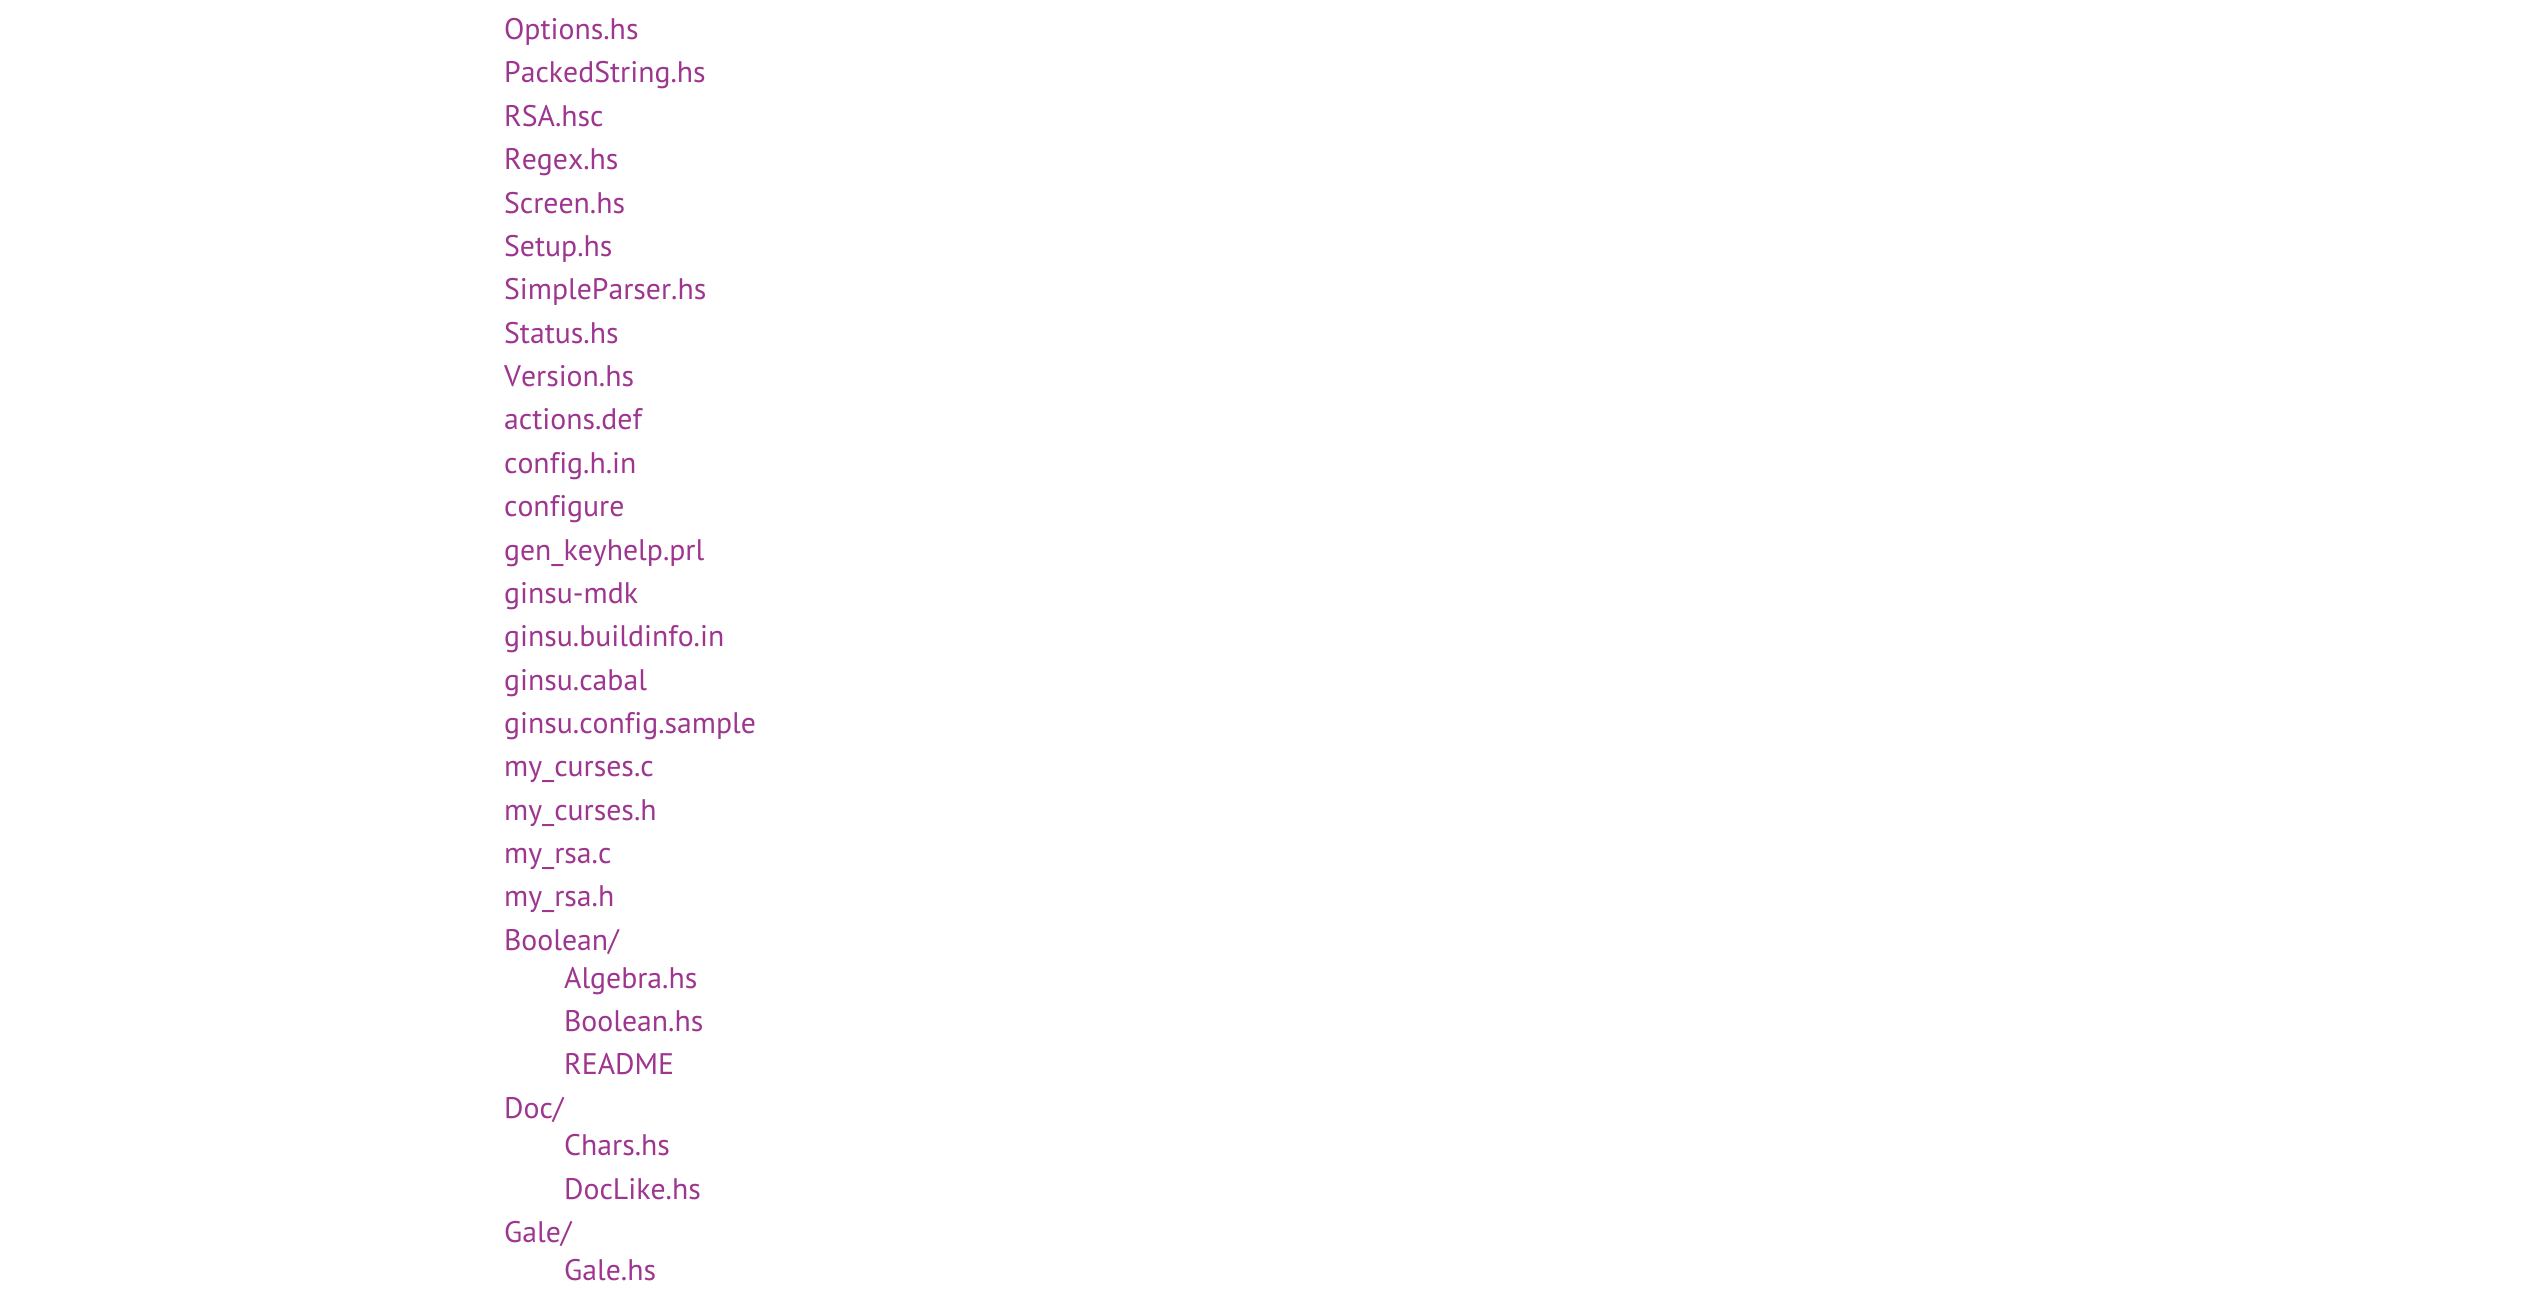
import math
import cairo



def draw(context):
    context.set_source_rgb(1, 1, 1)
    context.paint()
    context.select_font_face("PT Sans")
    context.set_font_size(29.75)
    context.set_source_rgb(158 / 255, 53 / 255, 143 / 255)
    context.move_to(504, 39)
    context.show_text("Options.hs")
    context.move_to(504, 82)
    context.show_text("PackedString.hs")
    context.move_to(504, 126)
    context.show_text("RSA.hsc")
    context.move_to(504, 169)
    context.show_text("Regex.hs")
    context.move_to(504, 213)
    context.show_text("Screen.hs")
    context.move_to(504, 256)
    context.show_text("Setup.hs")
    context.move_to(504, 299)
    context.show_text("SimpleParser.hs")
    context.move_to(504, 343)
    context.show_text("Status.hs")
    context.move_to(504, 386)
    context.show_text("Version.hs")
    context.move_to(504, 429)
    context.show_text("actions.def")
    context.move_to(504, 473)
    context.show_text("config.h.in")
    context.move_to(504, 516)
    context.show_text("configure")
    context.move_to(504, 560)
    context.show_text("gen_keyhelp.prl")
    context.move_to(504, 603)
    context.show_text("ginsu-mdk")
    context.move_to(504, 646)
    context.show_text("ginsu.buildinfo.in")
    context.move_to(504, 690)
    context.show_text("ginsu.cabal")
    context.move_to(504, 733)
    context.show_text("ginsu.config.sample")
    context.move_to(504, 776)
    context.show_text("my_curses.c")
    context.move_to(504, 820)
    context.show_text("my_curses.h")
    context.move_to(504, 863)
    context.show_text("my_rsa.c")
    context.move_to(504, 906)
    context.show_text("my_rsa.h")
    context.move_to(504, 950)
    context.show_text("Boolean/")
    context.move_to(564, 988)
    context.show_text("Algebra.hs")
    context.move_to(564, 1031)
    context.show_text("Boolean.hs")
    context.move_to(564, 1074)
    context.show_text("README")
    context.move_to(504, 1118)
    context.show_text("Doc/")
    context.move_to(564, 1155)
    context.show_text("Chars.hs")
    context.move_to(564, 1199)
    context.show_text("DocLike.hs")
    context.move_to(504, 1242)
    context.show_text("Gale/")
    context.move_to(564, 1280)
    context.show_text("Gale.hs")


surface = cairo.ImageSurface(cairo.Format.RGB24, 2541, 1298)
context = cairo.Context(surface)
options = cairo.FontOptions()
options.set_hint_metrics(cairo.HintMetrics.OFF)
options.set_hint_style(cairo.HintStyle.NONE)
context.set_font_options(options)
context.set_miter_limit(4)
draw(context)
surface.write_to_png("out.png")
